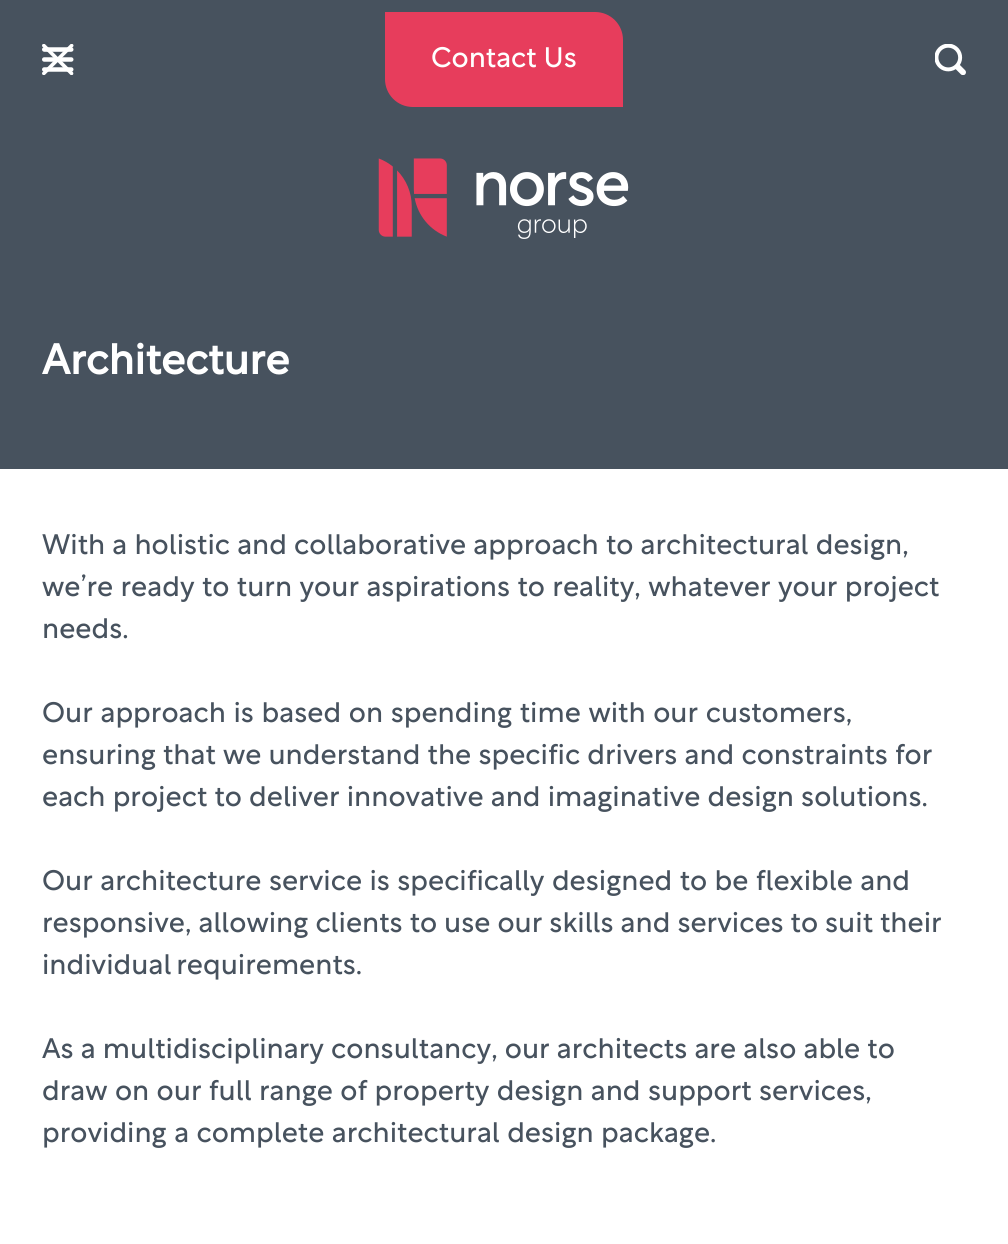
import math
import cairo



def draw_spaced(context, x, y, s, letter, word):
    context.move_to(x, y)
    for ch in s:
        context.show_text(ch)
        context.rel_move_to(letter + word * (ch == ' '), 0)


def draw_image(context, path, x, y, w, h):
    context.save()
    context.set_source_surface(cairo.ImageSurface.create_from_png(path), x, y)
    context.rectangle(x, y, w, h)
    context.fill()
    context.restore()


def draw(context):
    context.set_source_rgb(1, 1, 1)
    context.paint()
    context.set_source_rgb(71 / 255, 82 / 255, 94 / 255)
    context.rectangle(0, 0, 1008, 284)
    context.fill()
    draw_image(context, "images/1.png", 42, 44, 32, 31)
    context.set_source_rgb(231 / 255, 61 / 255, 92 / 255)
    context.new_path()
    context.move_to(387, 14)
    context.line_to(595, 14)
    context.curve_to(609.5, 14, 621, 25.5, 621, 40)
    context.line_to(621, 105)
    context.line_to(413, 105)
    context.curve_to(398.5, 105, 387, 93.5, 387, 79)
    context.close_path()
    context.fill_preserve()
    context.set_line_width(4)
    context.stroke()
    draw_image(context, "images/2.png", 935, 44, 31, 31)
    draw_image(context, "images/3.png", 378, 158, 251, 81)
    context.set_source_rgb(71 / 255, 82 / 255, 94 / 255)
    context.rectangle(0, 284, 1008, 185)
    context.fill()
    context.select_font_face("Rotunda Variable")
    context.set_font_size(28)
    context.set_source_rgb(1, 1, 1)
    context.move_to(431, 67)
    context.show_text("Contact Us")
    context.select_font_face("Rotunda Variable", cairo.FontSlant.NORMAL, cairo.FontWeight.BOLD)
    context.set_font_size(42)
    context.move_to(42, 374)
    context.show_text("Architecture")
    context.select_font_face("Rotunda Variable")
    context.set_font_size(28)
    context.set_source_rgb(71 / 255, 82 / 255, 94 / 255)
    draw_spaced(context, 42, 554, "With a holistic and collaborative approach to architectural design,", 0, 0.25)
    draw_spaced(context, 42, 596, "we’re ready to turn your aspirations to reality, whatever your project", 0, 0.5)
    context.move_to(42, 638)
    context.show_text("needs.")
    draw_spaced(context, 42, 722, "Our approach is based on spending time with our customers,", 0, 0.75)
    draw_spaced(context, 42, 764, "ensuring that we understand the specific drivers and constraints for", 0, 0.25)
    draw_spaced(context, 42, 806, "each project to deliver innovative and imaginative design solutions.", 0, 0.25)
    draw_spaced(context, 42, 890, "Our architecture service is specifically designed to be flexible and", 0, 0.5)
    draw_spaced(context, 42, 932, "responsive, allowing clients to use our skills and services to suit their", 0, 0.1)
    draw_spaced(context, 42, 974, "individual requirements.", 0, -2)
    draw_spaced(context, 42, 1058, "As a multidisciplinary consultancy, our architects are also able to", 0, 0.25)
    draw_spaced(context, 42, 1100, "draw on our full range of property design and support services,", 0, 0.5)
    draw_spaced(context, 42, 1142, "providing a complete architectural design package.", 0, 0.5)


surface = cairo.ImageSurface(cairo.Format.RGB24, 1008, 1244)
context = cairo.Context(surface)
options = cairo.FontOptions()
options.set_hint_metrics(cairo.HintMetrics.OFF)
options.set_hint_style(cairo.HintStyle.NONE)
context.set_font_options(options)
context.set_miter_limit(4)
draw(context)
surface.write_to_png("out.png")
